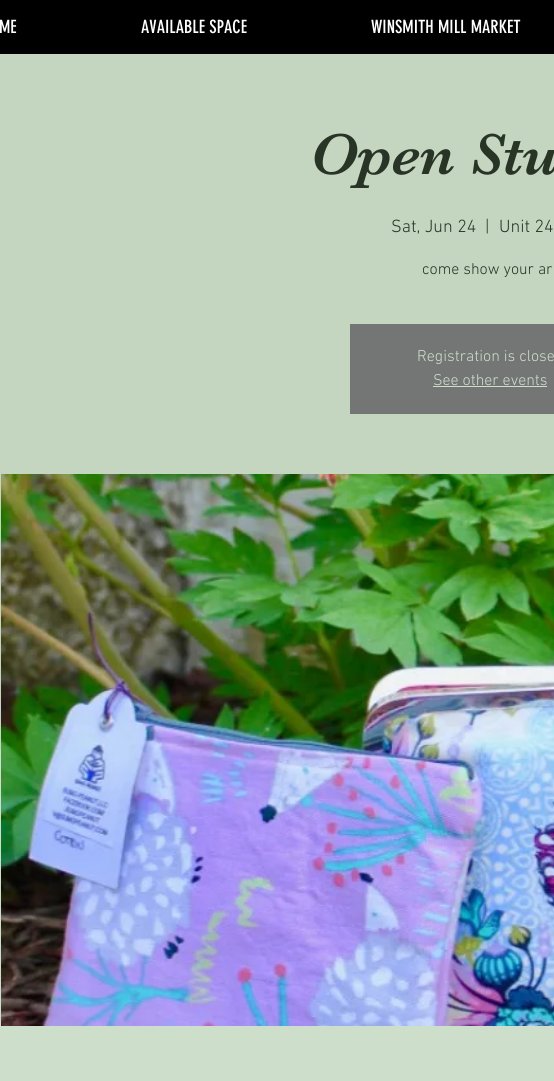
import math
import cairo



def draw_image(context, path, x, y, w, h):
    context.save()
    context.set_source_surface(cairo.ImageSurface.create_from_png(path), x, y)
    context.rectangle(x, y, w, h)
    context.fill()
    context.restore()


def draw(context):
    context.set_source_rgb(0, 0, 0)
    context.paint()
    context.set_source_rgb(196 / 255, 213 / 255, 192 / 255)
    context.rectangle(0, 54, 554, 696)
    context.fill()
    context.set_source_rgb(116 / 255, 117 / 255, 117 / 255)
    context.rectangle(350, 324, 204, 90)
    context.fill()
    context.set_source_rgb(205 / 255, 223 / 255, 202 / 255)
    context.rectangle(433, 386, 114, 1)
    context.fill()
    context.rectangle(0, 750, 554, 331)
    context.fill()
    draw_image(context, "images/1.png", 1, 474, 553, 552)
    context.select_font_face("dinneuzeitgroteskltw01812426")
    context.set_font_size(18)
    context.set_source_rgb(1, 1, 1)
    context.move_to(-1, 33)
    context.show_text("ME")
    context.move_to(141, 33)
    context.show_text("AVAILABLE SPACE")
    context.move_to(371, 33)
    context.show_text("WINSMITH MILL MARKET")
    context.select_font_face("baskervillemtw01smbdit")
    context.set_font_size(60)
    context.set_source_rgb(40 / 255, 53 / 255, 38 / 255)
    context.move_to(310, 174)
    context.show_text("Open Stu")
    context.select_font_face("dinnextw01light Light")
    context.set_font_size(18)
    context.move_to(391, 232)
    context.show_text("Sat, Jun 24")
    context.move_to(485, 232)
    context.show_text("|")
    context.move_to(499, 232)
    context.show_text("Unit 24")
    context.set_font_size(16)
    context.move_to(422, 274)
    context.show_text("come show your ar")
    context.set_source_rgb(205 / 255, 223 / 255, 202 / 255)
    context.move_to(417, 361)
    context.show_text("Registration is close")
    context.move_to(433, 385)
    context.show_text("See other events")


surface = cairo.ImageSurface(cairo.Format.RGB24, 554, 1081)
context = cairo.Context(surface)
options = cairo.FontOptions()
options.set_hint_metrics(cairo.HintMetrics.OFF)
options.set_hint_style(cairo.HintStyle.NONE)
context.set_font_options(options)
context.set_miter_limit(4)
draw(context)
surface.write_to_png("out.png")
